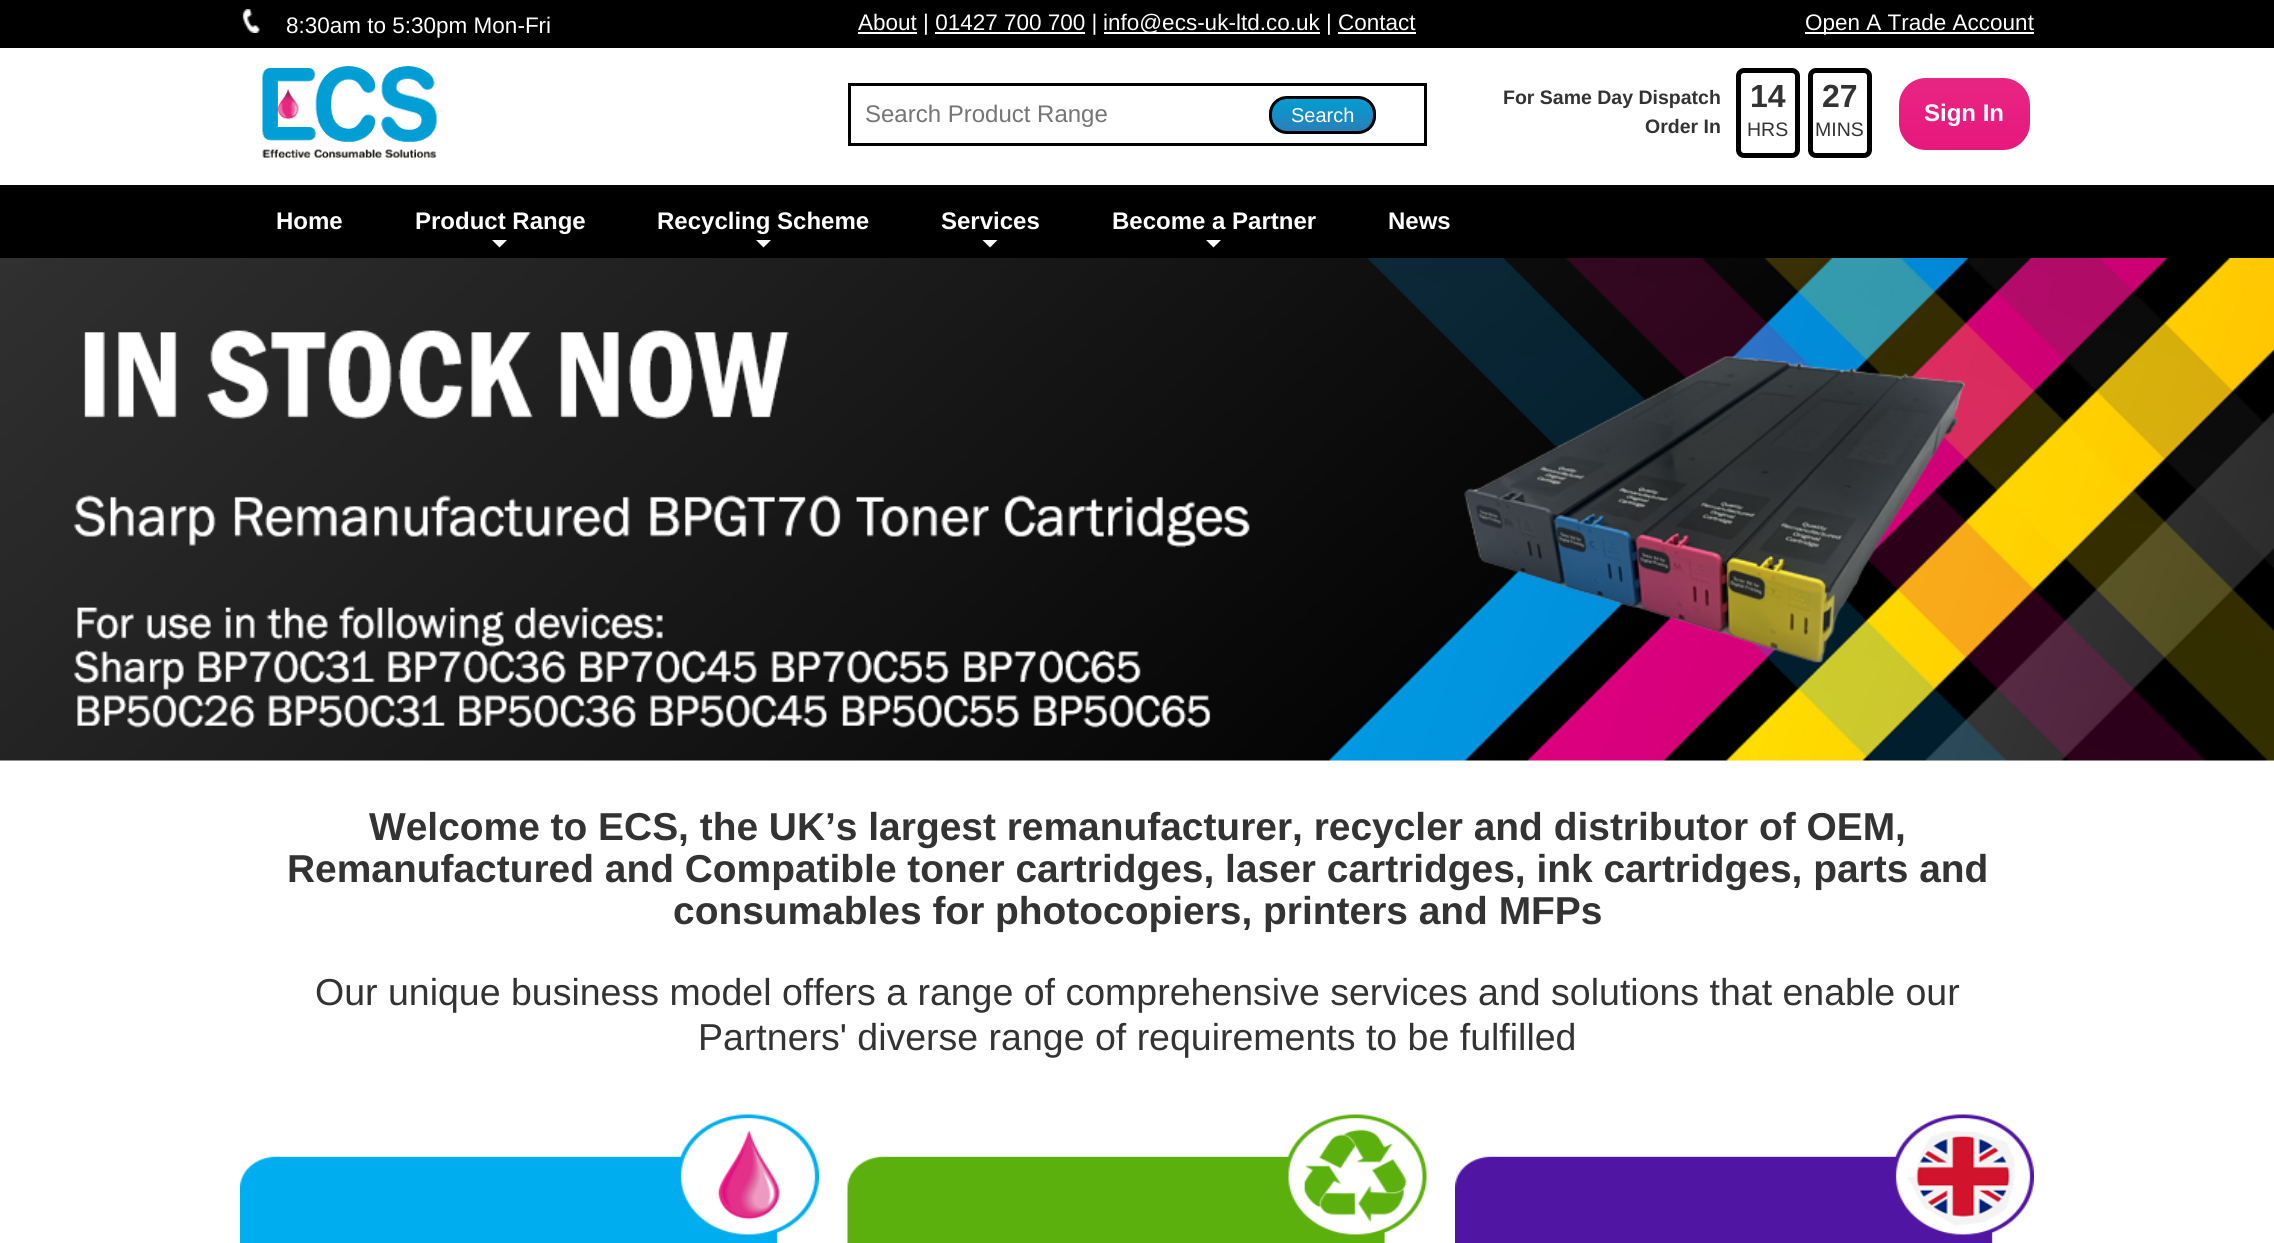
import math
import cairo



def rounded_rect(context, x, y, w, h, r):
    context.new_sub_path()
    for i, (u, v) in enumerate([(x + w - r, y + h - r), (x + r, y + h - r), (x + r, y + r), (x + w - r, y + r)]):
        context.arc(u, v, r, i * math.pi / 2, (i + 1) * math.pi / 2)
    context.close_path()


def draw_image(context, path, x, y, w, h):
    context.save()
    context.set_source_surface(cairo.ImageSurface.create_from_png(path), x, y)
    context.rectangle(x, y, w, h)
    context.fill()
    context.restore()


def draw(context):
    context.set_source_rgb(1, 1, 1)
    context.paint()
    context.set_source_rgb(0, 0, 0)
    context.rectangle(0, 0, 2274, 48)
    context.fill()
    draw_image(context, "images/1.png", 242, 9, 18, 24)
    context.set_source_rgb(1, 1, 1)
    context.rectangle(858, 32, 59, 2)
    context.fill()
    context.rectangle(1104, 32, 216, 2)
    context.fill()
    context.rectangle(935, 32, 150, 2)
    context.fill()
    context.rectangle(1338, 32, 78, 2)
    context.fill()
    context.rectangle(1805, 32, 229, 2)
    context.fill()
    draw_image(context, "images/2.png", 262, 66, 175, 92)
    context.rectangle(849.5, 84.5, 576, 60)
    context.set_source_rgb(0, 0, 0)
    context.set_line_width(3)
    context.stroke()
    context.save()
    rounded_rect(context, 1269, 96, 107, 38, 18)
    context.clip()
    gradient = cairo.LinearGradient(1322, 99, 1322, 131)
    gradient.add_color_stop_rgba(0, 2 / 255, 157 / 255, 209 / 255, 1)
    gradient.add_color_stop_rgba(1, 41 / 255, 128 / 255, 185 / 255, 1)
    context.set_source(gradient)
    context.rectangle(1269, 99, 107, 32)
    context.fill()
    context.restore()
    rounded_rect(context, 1270.5, 97.5, 104, 35, 16.5)
    context.stroke()
    rounded_rect(context, 1738.5, 70.5, 59, 85, 5.5)
    context.set_line_width(5)
    context.stroke()
    rounded_rect(context, 1810.5, 70.5, 59, 85, 5.5)
    context.stroke()
    gradient = cairo.LinearGradient(1964, 78, 1964, 150)
    gradient.add_color_stop_rgba(0, 232 / 255, 37 / 255, 131 / 255, 1)
    gradient.add_color_stop_rgba(1, 231 / 255, 24 / 255, 124 / 255, 1)
    context.set_source(gradient)
    rounded_rect(context, 1899, 78, 131, 72, 27)
    context.fill()
    context.set_source_rgb(0, 0, 0)
    context.rectangle(0, 185, 2274, 73)
    context.fill()
    context.set_source_rgb(1, 1, 1)
    context.new_path()
    context.move_to(492, 240)
    context.line_to(507, 240)
    context.line_to(499.5, 247.5)
    context.close_path()
    context.fill()
    context.new_path()
    context.move_to(756, 240)
    context.line_to(771, 240)
    context.line_to(763.5, 247.5)
    context.close_path()
    context.fill()
    context.new_path()
    context.move_to(982.5, 240)
    context.line_to(997.5, 240)
    context.line_to(990, 247.5)
    context.close_path()
    context.fill()
    context.new_path()
    context.move_to(1206, 240)
    context.line_to(1221, 240)
    context.line_to(1213.5, 247.5)
    context.close_path()
    context.fill()
    draw_image(context, "images/3.png", 0, 258, 2274, 503)
    draw_image(context, "images/4.png", 240, 1114, 579, 129)
    draw_image(context, "images/5.png", 847, 1114, 580, 129)
    draw_image(context, "images/6.png", 1455, 1114, 579, 129)
    context.select_font_face("Liberation Sans")
    context.set_font_size(22.5)
    context.move_to(286, 33)
    context.show_text("8:30am to 5:30pm Mon-Fri")
    context.move_to(858, 30)
    context.show_text("About | 01427 700 700 |")
    context.move_to(1103, 30)
    context.show_text("info@ecs-uk-ltd.co.uk | Contact")
    context.move_to(1805, 30)
    context.show_text("Open A Trade Account")
    context.set_font_size(24)
    context.set_source_rgb(117 / 255, 117 / 255, 117 / 255)
    context.move_to(865, 122)
    context.show_text("Search Product Range")
    context.set_font_size(20)
    context.set_source_rgb(1, 1, 1)
    context.move_to(1291, 122)
    context.show_text("Search")
    context.select_font_face("Liberation Sans", cairo.FontSlant.NORMAL, cairo.FontWeight.BOLD)
    context.set_font_size(19.5)
    context.set_source_rgb(51 / 255, 51 / 255, 51 / 255)
    context.move_to(1503, 104)
    context.show_text("For Same Day Dispatch")
    context.move_to(1645, 133)
    context.show_text("Order In")
    context.set_font_size(32)
    context.move_to(1750, 107)
    context.show_text("14")
    context.select_font_face("Liberation Sans")
    context.set_font_size(19.5)
    context.move_to(1747, 136)
    context.show_text("HRS")
    context.select_font_face("Liberation Sans", cairo.FontSlant.NORMAL, cairo.FontWeight.BOLD)
    context.set_font_size(32)
    context.move_to(1822, 107)
    context.show_text("27")
    context.select_font_face("Liberation Sans")
    context.set_font_size(19.5)
    context.move_to(1815, 136)
    context.show_text("MINS")
    context.select_font_face("Liberation Sans", cairo.FontSlant.NORMAL, cairo.FontWeight.BOLD)
    context.set_font_size(24)
    context.set_source_rgb(1, 1, 1)
    context.move_to(1924, 121)
    context.show_text("Sign In")
    context.move_to(276, 229)
    context.show_text("Home")
    context.move_to(415, 229)
    context.show_text("Product Range")
    context.move_to(657, 229)
    context.show_text("Recycling Scheme")
    context.move_to(941, 229)
    context.show_text("Services")
    context.move_to(1112, 229)
    context.show_text("Become a Partner")
    context.move_to(1388, 229)
    context.show_text("News")
    context.set_font_size(38.9)
    context.set_source_rgb(51 / 255, 51 / 255, 51 / 255)
    context.move_to(369, 840)
    context.show_text("Welcome to ECS, the UK’s largest remanufacturer, recycler and distributor of OEM,")
    context.move_to(287, 882)
    context.show_text("Remanufactured and Compatible toner cartridges, laser cartridges, ink cartridges, parts and")
    context.move_to(673, 924)
    context.show_text("consumables for photocopiers, printers and MFPs")
    context.select_font_face("Liberation Sans")
    context.set_font_size(37.5)
    context.move_to(315, 1005)
    context.show_text("Our unique business model offers a range of comprehensive services and solutions that enable our")
    context.move_to(698, 1050)
    context.show_text("Partners' diverse range of requirements to be fulfilled")


surface = cairo.ImageSurface(cairo.Format.RGB24, 2274, 1243)
context = cairo.Context(surface)
options = cairo.FontOptions()
options.set_hint_metrics(cairo.HintMetrics.OFF)
options.set_hint_style(cairo.HintStyle.NONE)
context.set_font_options(options)
context.set_miter_limit(4)
draw(context)
surface.write_to_png("out.png")
